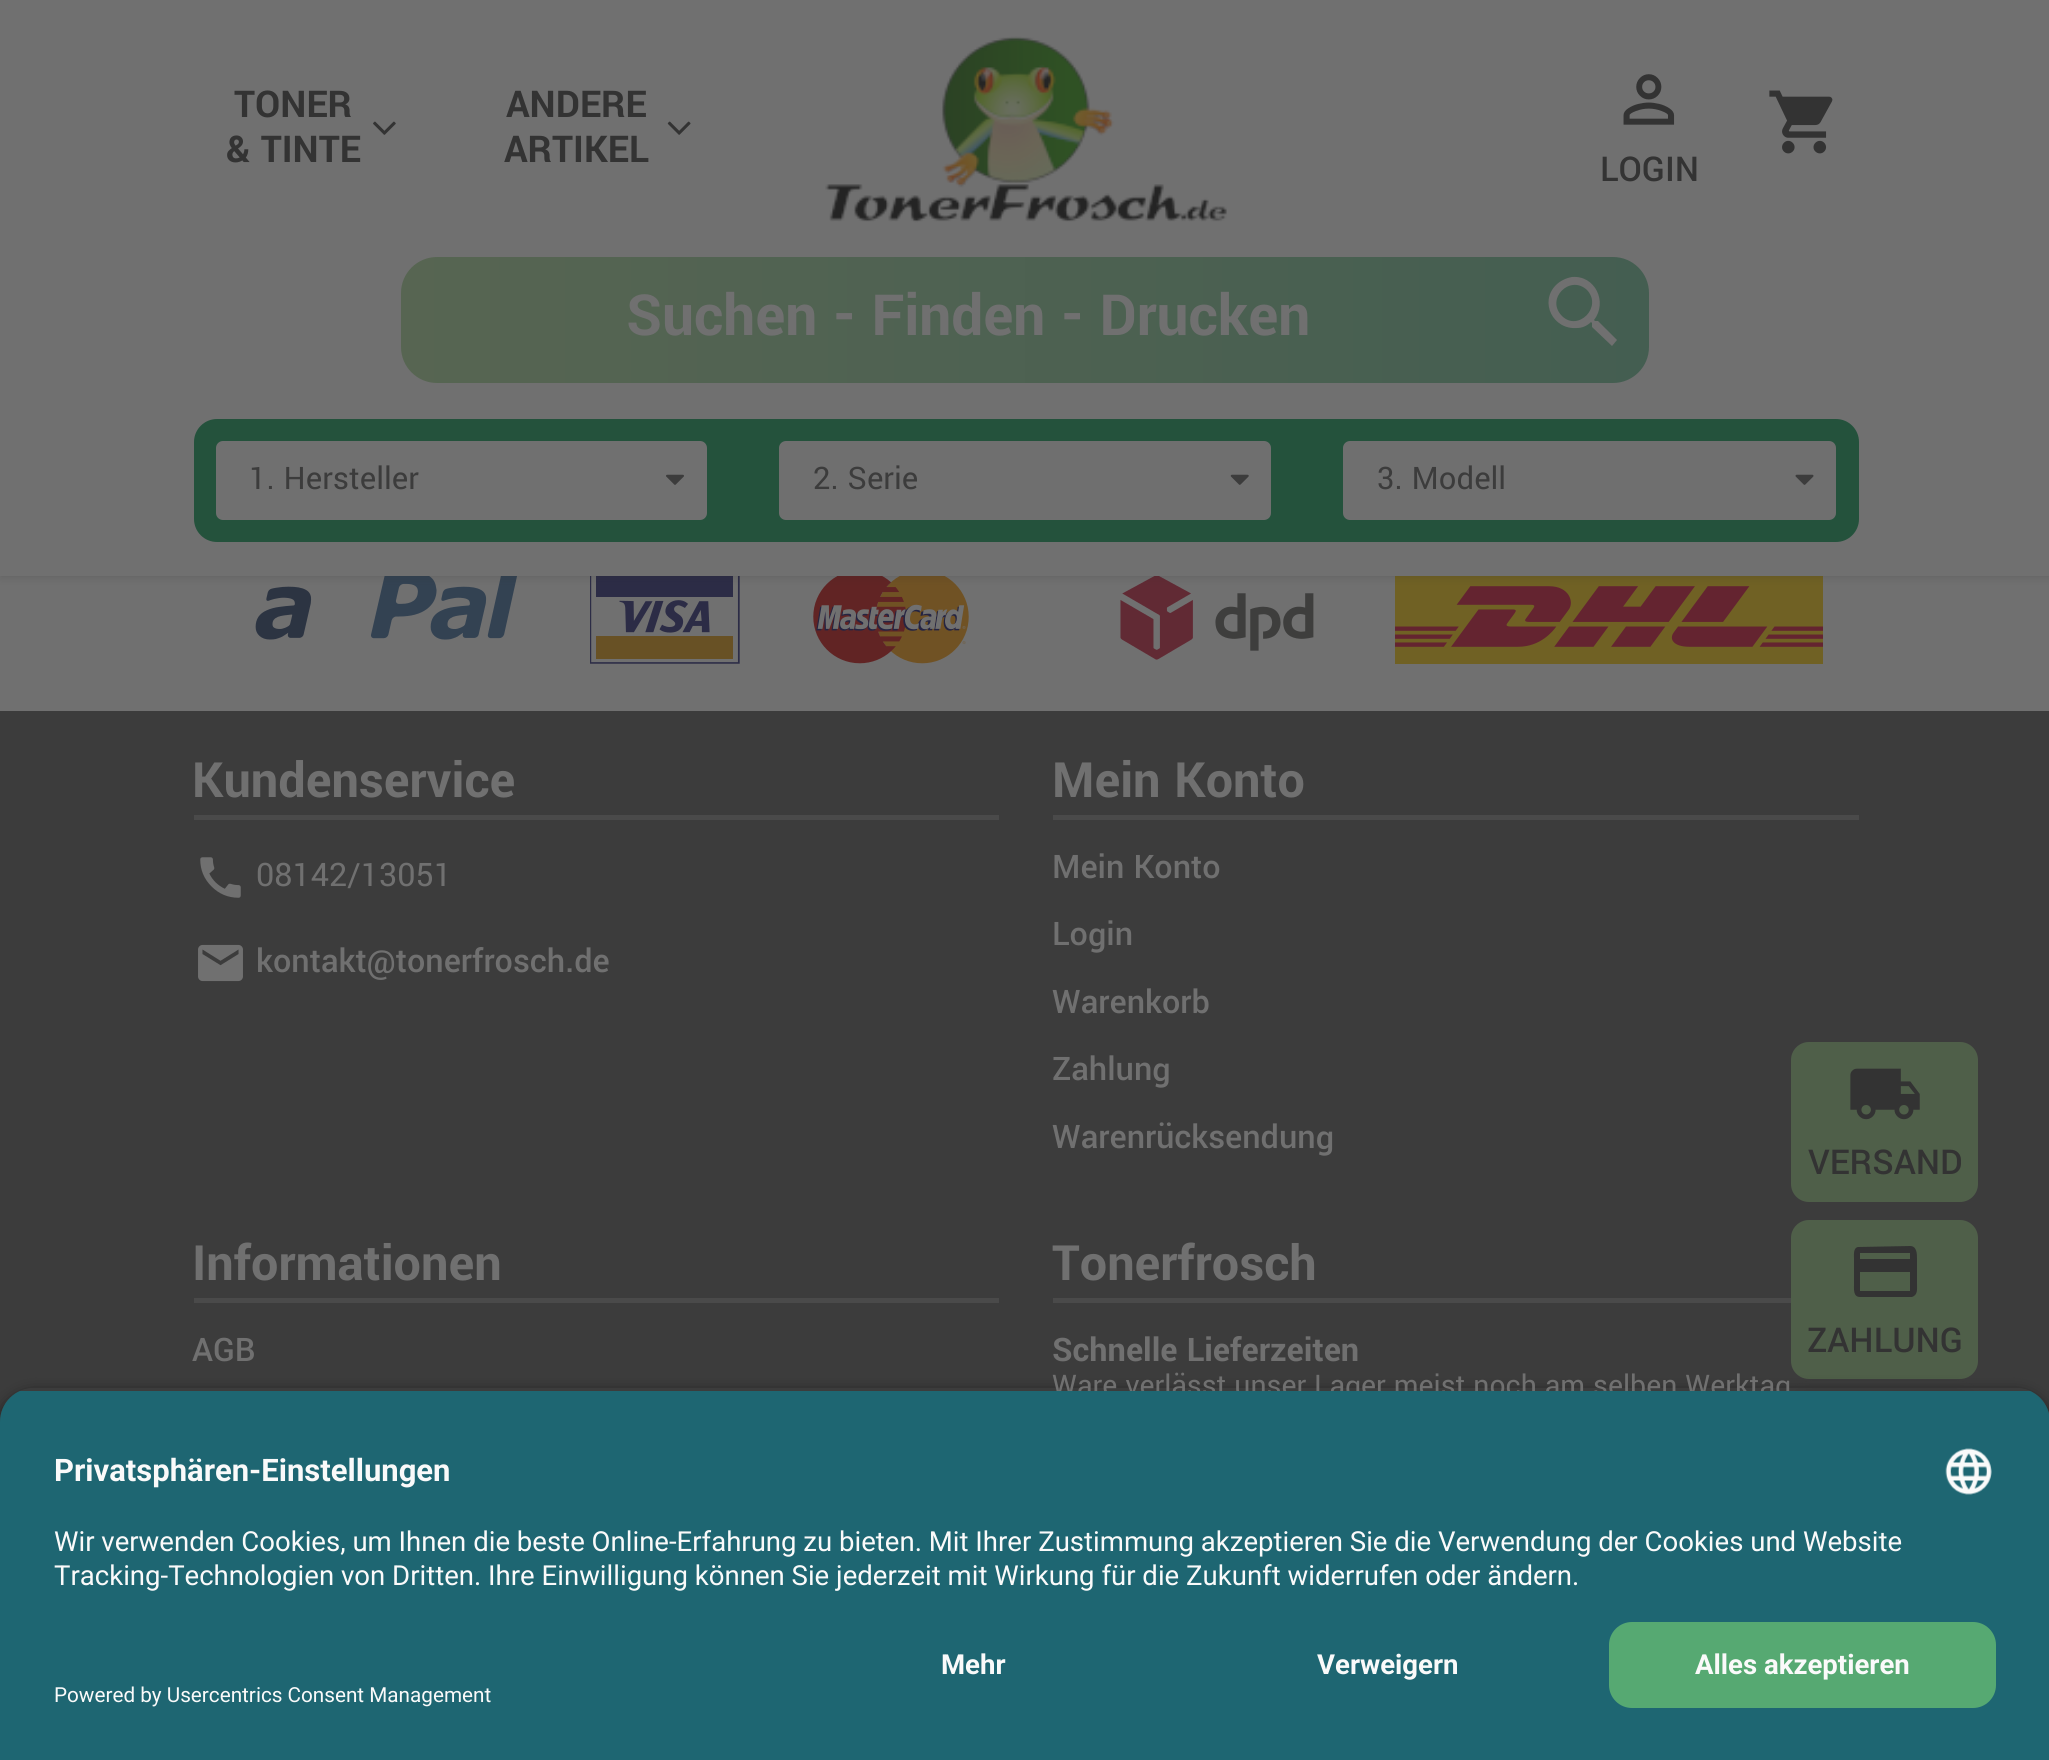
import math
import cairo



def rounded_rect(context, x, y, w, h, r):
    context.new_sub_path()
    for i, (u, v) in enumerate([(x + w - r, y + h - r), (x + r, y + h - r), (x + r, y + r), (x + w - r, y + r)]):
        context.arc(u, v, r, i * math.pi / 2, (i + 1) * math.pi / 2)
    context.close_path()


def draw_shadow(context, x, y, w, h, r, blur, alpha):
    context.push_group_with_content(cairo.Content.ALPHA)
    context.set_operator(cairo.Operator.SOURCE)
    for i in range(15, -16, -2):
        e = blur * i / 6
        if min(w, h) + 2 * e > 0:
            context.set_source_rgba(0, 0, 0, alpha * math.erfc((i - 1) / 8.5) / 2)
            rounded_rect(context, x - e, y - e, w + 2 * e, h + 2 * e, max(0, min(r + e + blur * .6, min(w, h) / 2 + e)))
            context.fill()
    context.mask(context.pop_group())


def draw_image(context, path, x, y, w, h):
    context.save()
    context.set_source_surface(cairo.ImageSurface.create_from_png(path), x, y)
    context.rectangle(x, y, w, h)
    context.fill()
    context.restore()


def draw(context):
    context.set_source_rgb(112 / 255, 112 / 255, 112 / 255)
    context.paint()
    draw_image(context, "images/9.png", 255, 576, 262, 64)
    draw_image(context, "images/10.png", 590, 576, 150, 88)
    draw_image(context, "images/11.png", 813, 576, 156, 88)
    draw_image(context, "images/12.png", 1120, 576, 194, 84)
    draw_image(context, "images/13.png", 1395, 576, 428, 88)
    context.set_source_rgb(36 / 255, 36 / 255, 36 / 255)
    draw_shadow(context, 0, 2, 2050, 576, 0, 4.5, 0.15)
    context.set_source_rgb(112 / 255, 112 / 255, 112 / 255)
    context.rectangle(0, 0, 2049, 576)
    context.fill()
    draw_image(context, "images/1.png", 373, 121, 23, 14)
    draw_image(context, "images/2.png", 667, 121, 24, 14)
    draw_image(context, "images/3.png", 825, 36, 402, 187)
    draw_image(context, "images/4.png", 1769, 90, 64, 64)
    draw_image(context, "images/5.png", 1623, 74, 52, 51)
    gradient = cairo.LinearGradient(401, 320, 1649, 319)
    gradient.add_color_stop_rgba(0, 87 / 255, 101 / 255, 82 / 255, 1)
    gradient.add_color_stop_rgba(1, 68 / 255, 94 / 255, 81 / 255, 1)
    context.set_source(gradient)
    rounded_rect(context, 401, 257, 1248, 126, 36)
    context.fill()
    context.set_source_rgb(112 / 255, 112 / 255, 112 / 255)
    context.new_path()
    context.move_to(1562, 316)
    context.curve_to(1578, 332, 1603, 307, 1587, 290)
    context.curve_to(1570, 274, 1545, 299, 1562, 316)
    context.close_path()
    context.move_to(1598, 321)
    context.line_to(1617, 340)
    context.line_to(1612, 346)
    context.line_to(1592, 327)
    context.line_to(1592, 323)
    context.line_to(1591, 322)
    context.curve_to(1587, 326, 1582, 328, 1577, 328)
    context.curve_to(1553, 330, 1539, 302, 1556, 285)
    context.curve_to(1560, 281, 1566, 278, 1572, 277)
    context.curve_to(1595, 275, 1608, 302, 1594, 320)
    context.line_to(1595, 321)
    context.close_path()
    context.fill()
    context.set_source_rgb(36 / 255, 82 / 255, 60 / 255)
    rounded_rect(context, 194, 419, 1665, 123, 23)
    context.fill()
    context.set_source_rgb(112 / 255, 112 / 255, 112 / 255)
    rounded_rect(context, 216, 441, 491, 79, 7)
    context.fill()
    draw_image(context, "images/6.png", 666, 474, 18, 11)
    context.set_source_rgb(111 / 255, 111 / 255, 111 / 255)
    rounded_rect(context, 779, 441, 492, 79, 7)
    context.fill()
    draw_image(context, "images/7.png", 1230, 474, 19, 11)
    rounded_rect(context, 1343, 441, 493, 79, 7)
    context.fill()
    draw_image(context, "images/8.png", 1795, 474, 19, 11)
    context.set_source_rgb(60 / 255, 60 / 255, 60 / 255)
    context.rectangle(0, 711, 2049, 711)
    context.fill()
    context.set_source_rgb(74 / 255, 74 / 255, 74 / 255)
    context.rectangle(194, 815, 805, 5)
    context.fill()
    draw_image(context, "images/14.png", 200, 857, 41, 41)
    draw_image(context, "images/15.png", 198, 944, 45, 38)
    context.rectangle(1053, 815, 806, 5)
    context.fill()
    context.rectangle(194, 1298, 805, 5)
    context.fill()
    context.rectangle(1053, 1298, 738, 5)
    context.fill()
    context.set_source_rgb(79 / 255, 95 / 255, 73 / 255)
    rounded_rect(context, 1791, 1042, 187, 160, 18)
    context.fill()
    draw_image(context, "images/16.png", 1850, 1068, 70, 52)
    rounded_rect(context, 1791, 1220, 187, 159, 18)
    context.fill()
    context.set_source_rgb(51 / 255, 51 / 255, 51 / 255)
    context.new_path()
    context.move_to(1910, 1259)
    context.line_to(1910, 1253)
    context.line_to(1860, 1253)
    context.line_to(1860, 1259)
    context.close_path()
    context.move_to(1910, 1291)
    context.line_to(1910, 1272)
    context.line_to(1860, 1272)
    context.line_to(1860, 1291)
    context.close_path()
    context.move_to(1910, 1246)
    context.curve_to(1917, 1246, 1917, 1254, 1917, 1259)
    context.line_to(1917, 1284)
    context.curve_to(1917, 1289, 1918, 1295, 1912, 1297)
    context.line_to(1860, 1297)
    context.curve_to(1853, 1297, 1854, 1289, 1854, 1284)
    context.line_to(1854, 1259)
    context.curve_to(1854, 1255, 1853, 1248, 1858, 1247)
    context.close_path()
    context.fill()
    context.set_source_rgb(36 / 255, 36 / 255, 36 / 255)
    draw_shadow(context, 1791, 1397, 187, 160, 18, 11, 0.24)
    context.save()
    context.set_fill_rule(cairo.FillRule.EVEN_ODD)
    context.new_path()
    context.move_to(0, 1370)
    context.line_to(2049, 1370)
    context.line_to(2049, 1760)
    context.line_to(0, 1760)
    context.close_path()
    context.move_to(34, 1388)
    context.line_to(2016, 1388)
    context.curve_to(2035, 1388, 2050, 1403, 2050, 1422)
    context.line_to(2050, 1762)
    context.line_to(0, 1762)
    context.line_to(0, 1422)
    context.curve_to(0, 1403, 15, 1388, 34, 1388)
    context.close_path()
    context.clip()
    context.set_source_rgb(0, 0, 0)
    draw_shadow(context, 0, 1395, 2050, 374, 34, 8, 0.8)
    context.restore()
    context.set_source_rgb(30 / 255, 102 / 255, 114 / 255)
    context.rectangle(0, 1604, 2049, 156)
    context.fill()
    context.set_source_rgb(86 / 255, 169 / 255, 114 / 255)
    rounded_rect(context, 1609, 1622, 387, 86, 23)
    context.fill()
    context.select_font_face("Yantramanav", cairo.FontSlant.NORMAL, cairo.FontWeight.BOLD)
    context.set_font_size(41)
    context.set_source_rgb(51 / 255, 51 / 255, 51 / 255)
    context.move_to(234, 117)
    context.show_text("TONER")
    context.move_to(226, 162)
    context.show_text("& TINTE")
    context.move_to(506, 117)
    context.show_text("ANDERE")
    context.move_to(504, 162)
    context.show_text("ARTIKEL")
    context.select_font_face("Yantramanav Medium")
    context.set_font_size(38)
    context.move_to(1600, 181)
    context.show_text("LOGIN")
    context.select_font_face("Yantramanav", cairo.FontSlant.NORMAL, cairo.FontWeight.BOLD)
    context.set_font_size(63)
    context.set_source_rgb(112 / 255, 112 / 255, 112 / 255)
    context.move_to(626, 335)
    context.show_text("Suchen - Finden - Drucken")
    context.select_font_face("Yantramanav")
    context.set_font_size(34.5)
    context.set_source_rgb(60 / 255, 60 / 255, 60 / 255)
    context.move_to(249, 489)
    context.show_text("1. Hersteller")
    context.move_to(813, 489)
    context.show_text("2. Serie")
    context.move_to(1377, 489)
    context.show_text("3. Modell")
    context.select_font_face("Yantramanav", cairo.FontSlant.NORMAL, cairo.FontWeight.BOLD)
    context.set_font_size(54)
    context.set_source_rgb(112 / 255, 112 / 255, 112 / 255)
    context.move_to(192, 797)
    context.show_text("Kundenservice")
    context.select_font_face("Yantramanav")
    context.set_font_size(36)
    context.move_to(256, 886)
    context.show_text("08142/13051")
    context.select_font_face("Yantramanav Medium")
    context.move_to(256, 972)
    context.show_text("kontakt@tonerfrosch.de")
    context.select_font_face("Yantramanav", cairo.FontSlant.NORMAL, cairo.FontWeight.BOLD)
    context.set_font_size(54)
    context.move_to(1052, 797)
    context.show_text("Mein Konto")
    context.select_font_face("Yantramanav Medium")
    context.set_font_size(36)
    context.move_to(1052, 878)
    context.show_text("Mein Konto")
    context.move_to(1052, 945)
    context.show_text("Login")
    context.move_to(1052, 1013)
    context.show_text("Warenkorb")
    context.move_to(1052, 1080)
    context.show_text("Zahlung")
    context.move_to(1052, 1148)
    context.show_text("Warenrücksendung")
    context.select_font_face("Yantramanav", cairo.FontSlant.NORMAL, cairo.FontWeight.BOLD)
    context.set_font_size(54)
    context.move_to(192, 1280)
    context.show_text("Informationen")
    context.select_font_face("Yantramanav Medium")
    context.set_font_size(36)
    context.move_to(192, 1361)
    context.show_text("AGB")
    context.select_font_face("Yantramanav", cairo.FontSlant.NORMAL, cairo.FontWeight.BOLD)
    context.set_font_size(54)
    context.move_to(1052, 1280)
    context.show_text("Tonerfrosch")
    context.set_font_size(36)
    context.move_to(1052, 1361)
    context.show_text("Schnelle Lieferzeiten")
    context.select_font_face("Yantramanav")
    context.set_font_size(31.5)
    context.move_to(1052, 1395)
    context.show_text("Ware verlässt unser Lager meist noch am selben Werktag")
    context.select_font_face("Yantramanav Medium")
    context.set_font_size(38)
    context.set_source_rgb(51 / 255, 51 / 255, 51 / 255)
    context.move_to(1808, 1174)
    context.show_text("VERSAND")
    context.move_to(1807, 1352)
    context.show_text("ZAHLUNG")
    context.save()
    context.new_path()
    context.move_to(34, 1388)
    context.line_to(2016, 1388)
    context.curve_to(2035, 1388, 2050, 1403, 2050, 1422)
    context.line_to(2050, 1604)
    context.line_to(0, 1604)
    context.line_to(0, 1422)
    context.curve_to(0, 1403, 15, 1388, 34, 1388)
    context.close_path()
    context.clip()
    context.set_source_rgb(30 / 255, 102 / 255, 114 / 255)
    context.rectangle(0, 1391, 2049, 213)
    context.fill()
    context.restore()
    context.select_font_face("Roboto", cairo.FontSlant.NORMAL, cairo.FontWeight.BOLD)
    context.set_font_size(31)
    context.set_source_rgb(250 / 255, 250 / 255, 250 / 255)
    context.move_to(54, 1481)
    context.show_text("Privatsphären-Einstellungen")
    draw_image(context, "images/17.png", 1945, 1448, 47, 47)
    context.select_font_face("Roboto")
    context.set_font_size(27.55)
    context.move_to(54, 1551)
    context.show_text("Wir verwenden Cookies, um Ihnen die beste Online-Erfahrung zu bieten. Mit Ihrer Zustimmung akzeptieren Sie die Verwendung der Cookies und Website")
    context.move_to(54, 1585)
    context.show_text("Tracking-Technologien von Dritten. Ihre Einwilligung können Sie jederzeit mit Wirkung für die Zukunft widerrufen oder ändern.")
    context.select_font_face("Roboto", cairo.FontSlant.NORMAL, cairo.FontWeight.BOLD)
    context.move_to(941, 1674)
    context.show_text("Mehr")
    context.move_to(1317, 1674)
    context.show_text("Verweigern")
    context.move_to(1695, 1674)
    context.show_text("Alles akzeptieren")
    context.select_font_face("Roboto")
    context.set_font_size(20.7)
    context.move_to(54, 1702)
    context.show_text("Powered by Usercentrics Consent Management")


surface = cairo.ImageSurface(cairo.Format.RGB24, 2049, 1760)
context = cairo.Context(surface)
options = cairo.FontOptions()
options.set_hint_metrics(cairo.HintMetrics.OFF)
options.set_hint_style(cairo.HintStyle.NONE)
context.set_font_options(options)
context.set_miter_limit(4)
draw(context)
surface.write_to_png("out.png")
